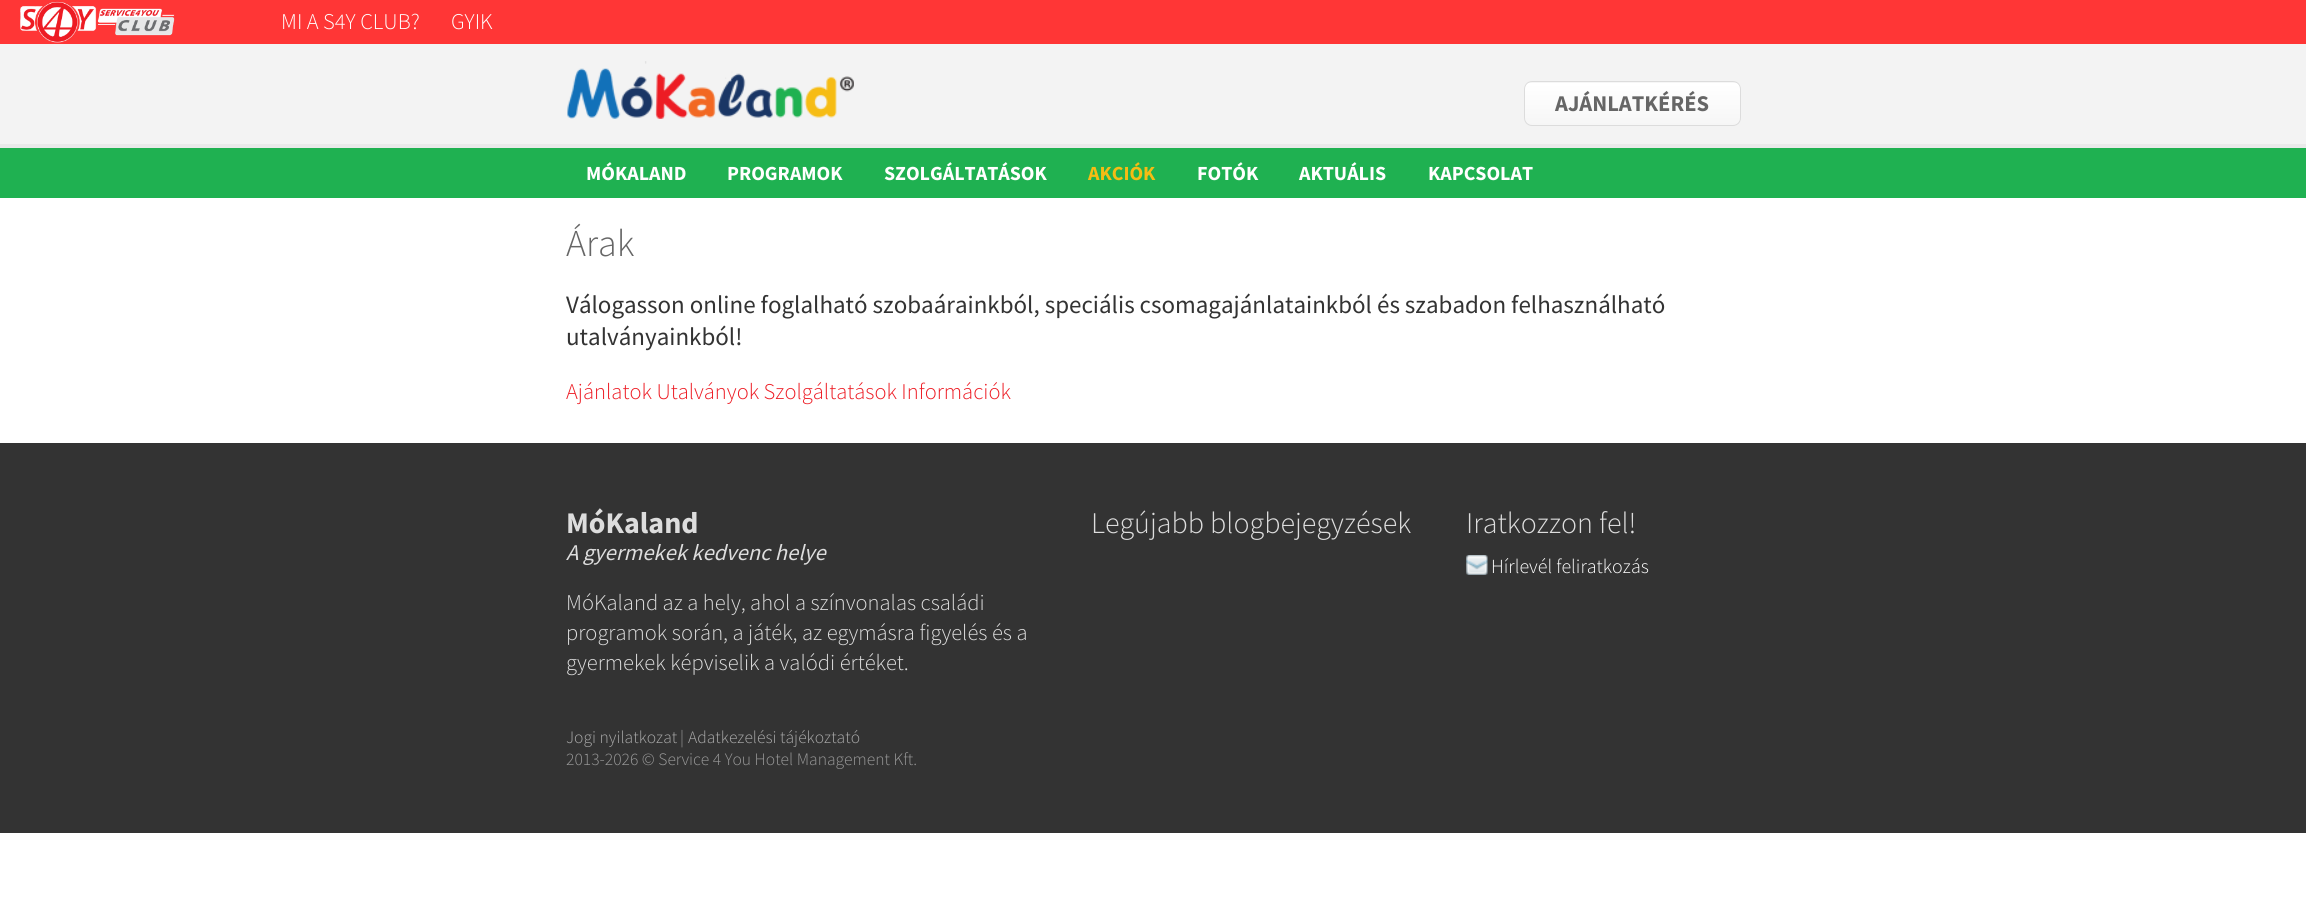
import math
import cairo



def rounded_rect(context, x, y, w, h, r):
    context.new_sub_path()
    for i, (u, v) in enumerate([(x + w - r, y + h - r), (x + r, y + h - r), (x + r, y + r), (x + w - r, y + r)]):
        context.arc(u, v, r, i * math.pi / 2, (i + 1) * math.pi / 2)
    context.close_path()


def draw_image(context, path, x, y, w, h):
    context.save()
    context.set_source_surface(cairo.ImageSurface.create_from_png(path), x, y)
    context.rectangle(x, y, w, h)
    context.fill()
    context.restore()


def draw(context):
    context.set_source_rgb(1, 1, 1)
    context.paint()
    context.set_source_rgb(1, 54 / 255, 54 / 255)
    context.rectangle(0, 0, 2306, 44)
    context.fill()
    draw_image(context, "images/1.png", 20, 1, 155, 42)
    context.set_source_rgb(243 / 255, 243 / 255, 243 / 255)
    context.rectangle(0, 44, 2306, 100)
    context.fill()
    context.set_source_rgb(233 / 255, 233 / 255, 233 / 255)
    context.rectangle(0, 144, 2306, 4)
    context.fill()
    draw_image(context, "images/2.png", 567, 61, 287, 58)
    context.save()
    rounded_rect(context, 1524, 81, 217, 45, 8)
    context.clip()
    gradient = cairo.LinearGradient(1633, 40, 1633, 83)
    gradient.add_color_stop_rgba(0.05, 1, 1, 1, 1)
    gradient.add_color_stop_rgba(1, 246 / 255, 246 / 255, 246 / 255, 1)
    context.set_source(gradient)
    context.rectangle(1524, 81, 217, 2)
    context.fill()
    gradient = cairo.LinearGradient(1633, 82, 1633, 125)
    gradient.add_color_stop_rgba(0.05, 1, 1, 1, 1)
    gradient.add_color_stop_rgba(1, 246 / 255, 246 / 255, 246 / 255, 1)
    context.set_source(gradient)
    context.rectangle(1524, 83, 217, 42)
    context.fill()
    context.restore()
    rounded_rect(context, 1524.5, 81.5, 216, 44, 7.5)
    context.set_source_rgb(220 / 255, 220 / 255, 220 / 255)
    context.set_line_width(1)
    context.stroke()
    context.set_source_rgb(31 / 255, 177 / 255, 81 / 255)
    context.rectangle(0, 148, 2306, 50)
    context.fill()
    context.set_source_rgb(51 / 255, 51 / 255, 51 / 255)
    context.rectangle(0, 443, 2306, 390)
    context.fill()
    draw_image(context, "images/3.png", 1466, 555, 22, 20)
    context.select_font_face("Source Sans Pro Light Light")
    context.set_font_size(22.5)
    context.set_source_rgb(1, 1, 1)
    context.move_to(281, 29)
    context.show_text("MI A S4Y CLUB?")
    context.move_to(451, 29)
    context.show_text("GYIK")
    context.select_font_face("Source Sans Pro", cairo.FontSlant.NORMAL, cairo.FontWeight.BOLD)
    context.set_source_rgb(102 / 255, 102 / 255, 102 / 255)
    context.move_to(1555, 111)
    context.show_text("AJÁNLATKÉRÉS")
    context.set_font_size(20)
    context.set_source_rgb(1, 1, 1)
    context.move_to(586, 180)
    context.show_text("MÓKALAND")
    context.move_to(727, 180)
    context.show_text("PROGRAMOK")
    context.move_to(884, 180)
    context.show_text("SZOLGÁLTATÁSOK")
    context.set_source_rgb(246 / 255, 188 / 255, 20 / 255)
    context.move_to(1088, 180)
    context.show_text("AKCIÓK")
    context.set_source_rgb(1, 1, 1)
    context.move_to(1197, 180)
    context.show_text("FOTÓK")
    context.move_to(1299, 180)
    context.show_text("AKTUÁLIS")
    context.move_to(1428, 180)
    context.show_text("KAPCSOLAT")
    context.select_font_face("Source Sans Pro Light Light")
    context.set_font_size(38)
    context.set_source_rgb(102 / 255, 102 / 255, 102 / 255)
    context.move_to(566, 256)
    context.show_text("Árak")
    context.select_font_face("Source Sans Pro")
    context.set_font_size(25)
    context.set_source_rgb(51 / 255, 51 / 255, 51 / 255)
    context.move_to(566, 313)
    context.show_text("Válogasson online foglalható szobaárainkból, speciális csomagajánlatainkból és szabadon felhasználható")
    context.move_to(566, 345)
    context.show_text("utalványainkból!")
    context.select_font_face("Source Sans Pro Light Light")
    context.set_font_size(22.5)
    context.set_source_rgb(237 / 255, 28 / 255, 36 / 255)
    context.move_to(566, 399)
    context.show_text("Ajánlatok Utalványok Szolgáltatások Információk")
    context.select_font_face("Source Sans Pro", cairo.FontSlant.NORMAL, cairo.FontWeight.BOLD)
    context.set_font_size(30)
    context.set_source_rgb(221 / 255, 221 / 255, 221 / 255)
    context.move_to(566, 533)
    context.show_text("MóKaland")
    context.select_font_face("Source Sans Pro", cairo.FontSlant.ITALIC)
    context.set_font_size(22.5)
    context.move_to(566, 560)
    context.show_text("A gyermekek kedvenc helye")
    context.select_font_face("Source Sans Pro Light Light")
    context.move_to(566, 610)
    context.show_text("MóKaland az a hely, ahol a színvonalas családi")
    context.move_to(566, 640)
    context.show_text("programok során, a játék, az egymásra figyelés és a")
    context.move_to(566, 670)
    context.show_text("gyermekek képviselik a valódi értéket.")
    context.set_font_size(30)
    context.move_to(1091, 533)
    context.show_text("Legújabb blogbejegyzések")
    context.move_to(1466, 533)
    context.show_text("Iratkozzon fel!")
    context.set_font_size(20)
    context.set_source_rgb(1, 1, 1)
    context.move_to(1491, 573)
    context.show_text("Hírlevél feliratkozás")
    context.set_font_size(17.5)
    context.set_source_rgb(170 / 255, 170 / 255, 170 / 255)
    context.move_to(566, 743)
    context.show_text("Jogi nyilatkozat")
    context.set_source_rgb(153 / 255, 153 / 255, 153 / 255)
    context.move_to(680, 743)
    context.show_text("|")
    context.set_source_rgb(170 / 255, 170 / 255, 170 / 255)
    context.move_to(688, 743)
    context.show_text("Adatkezelési tájékoztató")
    context.set_source_rgb(153 / 255, 153 / 255, 153 / 255)
    context.move_to(566, 765)
    context.show_text("2013-2026 © Service 4 You Hotel Management Kft.")


surface = cairo.ImageSurface(cairo.Format.RGB24, 2306, 908)
context = cairo.Context(surface)
options = cairo.FontOptions()
options.set_hint_metrics(cairo.HintMetrics.OFF)
options.set_hint_style(cairo.HintStyle.NONE)
context.set_font_options(options)
context.set_miter_limit(4)
draw(context)
surface.write_to_png("out.png")
